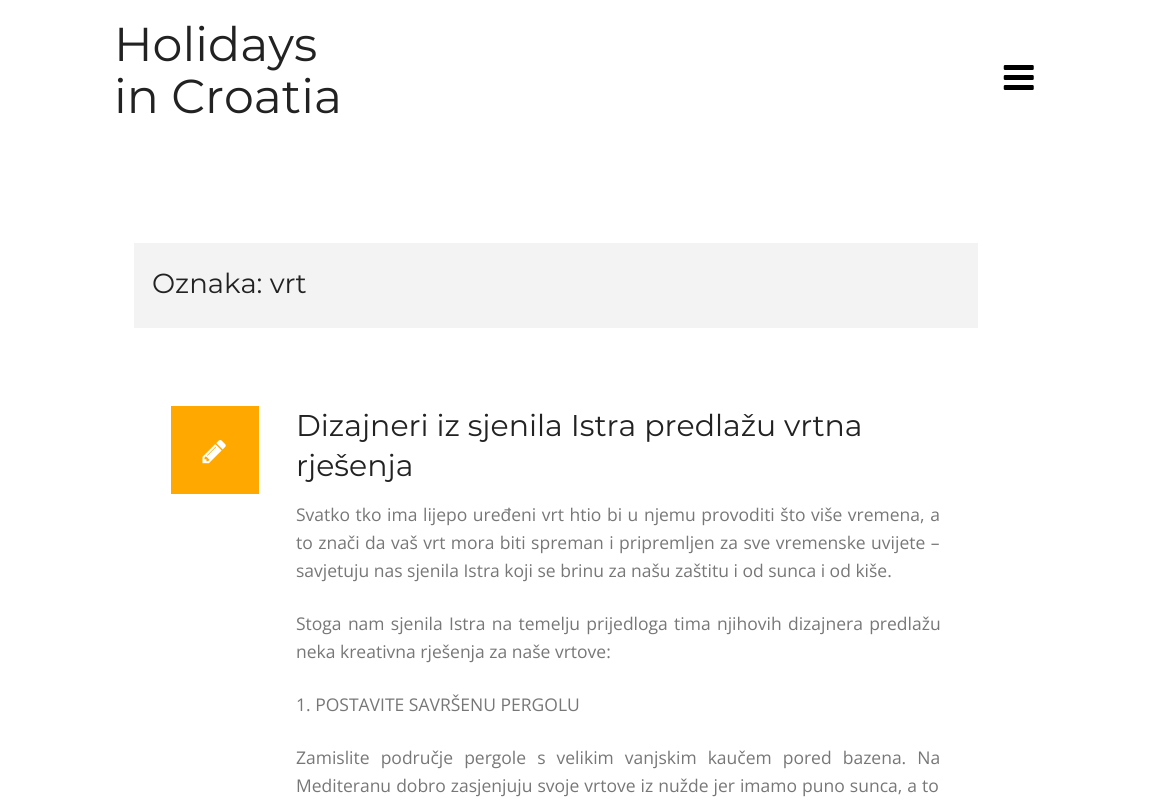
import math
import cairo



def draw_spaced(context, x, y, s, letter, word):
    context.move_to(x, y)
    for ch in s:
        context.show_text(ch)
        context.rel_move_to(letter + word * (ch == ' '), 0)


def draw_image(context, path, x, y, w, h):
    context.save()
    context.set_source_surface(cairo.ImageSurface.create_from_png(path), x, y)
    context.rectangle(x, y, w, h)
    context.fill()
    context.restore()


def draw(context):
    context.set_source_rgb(1, 1, 1)
    context.paint()
    draw_image(context, "images/1.png", 1003, 65, 31, 25)
    context.set_source_rgb(243 / 255, 243 / 255, 243 / 255)
    context.rectangle(134, 243, 844, 85)
    context.fill()
    context.set_source_rgb(1, 168 / 255, 0)
    context.rectangle(171, 406, 88, 88)
    context.fill()
    draw_image(context, "images/2.png", 202, 440, 24, 24)
    context.select_font_face("Montserrat")
    context.set_font_size(47.5)
    context.set_source_rgb(34 / 255, 34 / 255, 34 / 255)
    context.move_to(114, 61)
    context.show_text("Holidays")
    context.move_to(114, 113)
    context.show_text("in Croatia")
    context.set_font_size(27.5)
    context.move_to(152, 293)
    context.show_text("Oznaka: vrt")
    context.set_font_size(30)
    context.move_to(296, 436)
    context.show_text("Dizajneri iz sjenila Istra predlažu vrtna")
    context.move_to(296, 476)
    context.show_text("rješenja")
    context.select_font_face("Open Sans")
    context.set_font_size(17.5)
    context.set_source_rgb(119 / 255, 119 / 255, 119 / 255)
    draw_spaced(context, 296, 521, "Svatko tko ima lijepo uređeni vrt htio bi u njemu provoditi što više vremena, a", 0, 1)
    draw_spaced(context, 296, 549, "to znači da vaš vrt mora biti spreman i pripremljen za sve vremenske uvijete –", 0, 0.9)
    context.move_to(296, 577)
    context.show_text("savjetuju nas sjenila Istra koji se brinu za našu zaštitu i od sunca i od kiše.")
    draw_spaced(context, 296, 630, "Stoga nam sjenila Istra na temelju prijedloga tima njihovih dizajnera predlažu", 0, 1.75)
    context.move_to(296, 658)
    context.show_text("neka kreativna rješenja za naše vrtove:")
    context.move_to(296, 711)
    context.show_text("1. POSTAVITE SAVRŠENU PERGOLU")
    draw_spaced(context, 296, 764, "Zamislite područje pergole s velikim vanjskim kaučem pored bazena. Na", 0, 6.5)
    draw_spaced(context, 296, 792, "Mediteranu dobro zasjenjuju svoje vrtove iz nužde jer imamo puno sunca, a to", 0, 0.5)


surface = cairo.ImageSurface(cairo.Format.RGB24, 1166, 804)
context = cairo.Context(surface)
options = cairo.FontOptions()
options.set_hint_metrics(cairo.HintMetrics.OFF)
options.set_hint_style(cairo.HintStyle.NONE)
context.set_font_options(options)
context.set_miter_limit(4)
draw(context)
surface.write_to_png("out.png")
